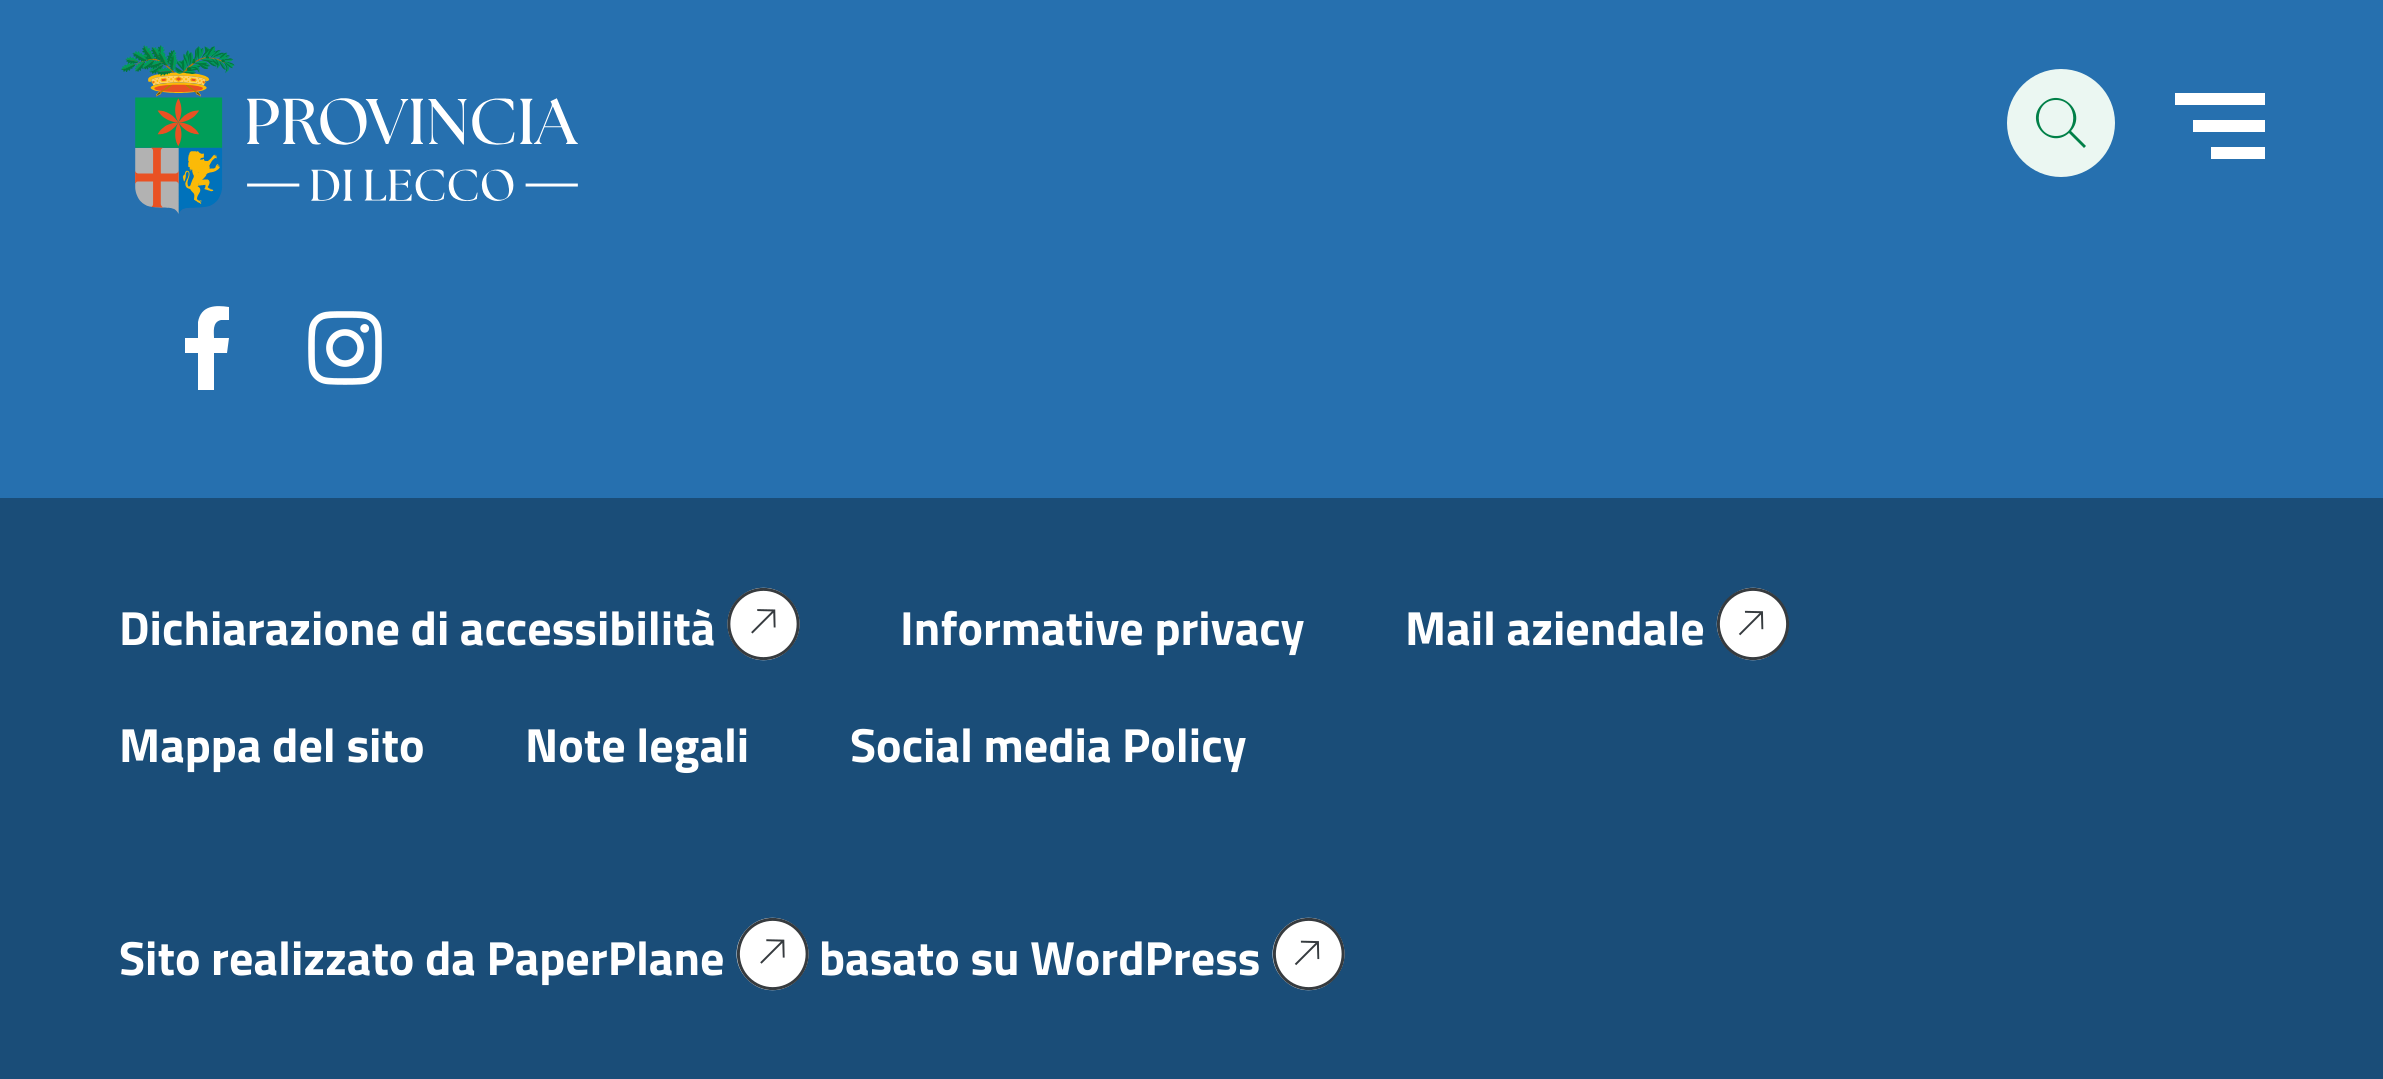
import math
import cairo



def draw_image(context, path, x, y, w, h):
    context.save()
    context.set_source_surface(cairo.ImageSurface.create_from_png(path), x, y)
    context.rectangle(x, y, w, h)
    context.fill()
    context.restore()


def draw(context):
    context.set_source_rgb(38 / 255, 112 / 255, 175 / 255)
    context.paint()
    draw_image(context, "images/1.png", 121, 45, 457, 169)
    context.set_source_rgb(235 / 255, 247 / 255, 242 / 255)
    context.arc(2061, 123, 54, 0, 2 * math.pi)
    context.fill()
    context.set_source_rgb(1 / 255, 128 / 255, 72 / 255)
    context.new_path()
    context.move_to(2086, 146)
    context.line_to(2084, 148)
    context.line_to(2069, 133)
    context.curve_to(2050, 150, 2024, 122, 2042, 104)
    context.curve_to(2060, 86, 2088, 112, 2071, 131)
    context.close_path()
    context.move_to(2056, 136)
    context.curve_to(2079, 136, 2079, 100, 2056, 100)
    context.curve_to(2033, 100, 2033, 136, 2056, 136)
    context.close_path()
    context.fill()
    context.set_source_rgb(1, 1, 1)
    context.rectangle(2175, 93, 90, 12)
    context.fill()
    context.rectangle(2193, 120, 72, 12)
    context.fill()
    context.rectangle(2211, 147, 54, 12)
    context.fill()
    context.new_path()
    context.move_to(227, 353)
    context.line_to(214, 353)
    context.line_to(214, 390)
    context.line_to(198, 390)
    context.line_to(198, 353)
    context.line_to(185, 353)
    context.line_to(185, 338)
    context.line_to(198, 338)
    context.line_to(198, 322)
    context.curve_to(201, 305, 216, 305, 229, 307)
    context.line_to(229, 320)
    context.line_to(221, 320)
    context.curve_to(212, 322, 214, 332, 214, 338)
    context.line_to(229, 338)
    context.close_path()
    context.fill()
    draw_image(context, "images/2.png", 308, 311, 74, 74)
    context.set_source_rgb(26 / 255, 77 / 255, 120 / 255)
    context.rectangle(0, 498, 2383, 581)
    context.fill()
    context.set_source_rgb(1, 1, 1)
    context.new_path()
    context.move_to(738, 599)
    context.curve_to(752, 584, 775, 584, 789, 599)
    context.curve_to(803, 613, 803, 635, 789, 649)
    context.curve_to(775, 664, 752, 664, 738, 649)
    context.curve_to(724, 635, 724, 613, 738, 599)
    context.close_path()
    context.fill()
    context.new_path()
    context.move_to(739, 599.5)
    context.curve_to(752.5, 586, 774.5, 586, 788, 599.5)
    context.curve_to(801.5, 613, 801.5, 635, 788, 648.5)
    context.curve_to(774.5, 662, 752.5, 662, 739, 648.5)
    context.curve_to(725.5, 635, 725.5, 613, 739, 599.5)
    context.close_path()
    context.set_source_rgb(54 / 255, 59 / 255, 63 / 255)
    context.set_line_width(3)
    context.stroke()
    draw_image(context, "images/3.png", 751, 609, 25, 25)
    context.set_source_rgb(1, 1, 1)
    context.new_path()
    context.move_to(1728, 599)
    context.curve_to(1742, 584, 1764, 584, 1778, 599)
    context.curve_to(1792, 613, 1792, 635, 1778, 649)
    context.curve_to(1764, 664, 1742, 664, 1728, 649)
    context.curve_to(1713, 635, 1713, 613, 1728, 599)
    context.close_path()
    context.fill()
    context.new_path()
    context.move_to(1728.5, 599.5)
    context.curve_to(1742, 586, 1764, 586, 1777.5, 599.5)
    context.curve_to(1791, 613, 1791, 635, 1777.5, 648.5)
    context.curve_to(1764, 662, 1742, 662, 1728.5, 648.5)
    context.curve_to(1715, 635, 1715, 613, 1728.5, 599.5)
    context.close_path()
    context.set_source_rgb(54 / 255, 59 / 255, 63 / 255)
    context.stroke()
    draw_image(context, "images/4.png", 1738, 610, 26, 26)
    context.set_source_rgb(1, 1, 1)
    context.new_path()
    context.move_to(747, 929)
    context.curve_to(761, 914, 784, 914, 798, 929)
    context.curve_to(812, 943, 812, 965, 798, 979)
    context.curve_to(784, 994, 761, 994, 747, 979)
    context.curve_to(733, 965, 733, 943, 747, 929)
    context.close_path()
    context.fill()
    context.new_path()
    context.move_to(748.5, 929.5)
    context.curve_to(762, 916, 783.5, 916, 797, 929.5)
    context.curve_to(810.5, 943, 810.5, 965, 797, 978.5)
    context.curve_to(783.5, 992, 762, 992, 748.5, 978.5)
    context.curve_to(735, 965, 735, 943, 748.5, 929.5)
    context.close_path()
    context.set_source_rgb(54 / 255, 59 / 255, 63 / 255)
    context.stroke()
    draw_image(context, "images/5.png", 760, 939, 25, 25)
    context.set_source_rgb(1, 1, 1)
    context.new_path()
    context.move_to(1283, 929)
    context.curve_to(1297, 914, 1320, 914, 1334, 929)
    context.curve_to(1348, 943, 1348, 965, 1334, 979)
    context.curve_to(1320, 994, 1297, 994, 1283, 979)
    context.curve_to(1269, 965, 1269, 943, 1283, 929)
    context.close_path()
    context.fill()
    context.new_path()
    context.move_to(1284.5, 929.5)
    context.curve_to(1298, 916, 1319.5, 916, 1333, 929.5)
    context.curve_to(1346.5, 943, 1346.5, 965, 1333, 978.5)
    context.curve_to(1319.5, 992, 1298, 992, 1284.5, 978.5)
    context.curve_to(1271, 965, 1271, 943, 1284.5, 929.5)
    context.close_path()
    context.set_source_rgb(54 / 255, 59 / 255, 63 / 255)
    context.stroke()
    draw_image(context, "images/6.png", 1294, 940, 26, 26)
    context.select_font_face("Titillium Web", cairo.FontSlant.NORMAL, cairo.FontWeight.BOLD)
    context.set_font_size(48)
    context.set_source_rgb(1, 1, 1)
    context.move_to(119, 645)
    context.show_text("Dichiarazione di accessibilità")
    context.move_to(900, 645)
    context.show_text("Informative privacy")
    context.move_to(1405, 645)
    context.show_text("Mail aziendale")
    context.move_to(119, 762)
    context.show_text("Mappa del sito")
    context.move_to(525, 762)
    context.show_text("Note legali")
    context.move_to(850, 762)
    context.show_text("Social media Policy")
    context.move_to(119, 975)
    context.show_text("Sito realizzato da PaperPlane")
    context.move_to(819, 975)
    context.show_text("basato su WordPress")


surface = cairo.ImageSurface(cairo.Format.RGB24, 2383, 1079)
context = cairo.Context(surface)
options = cairo.FontOptions()
options.set_hint_metrics(cairo.HintMetrics.OFF)
options.set_hint_style(cairo.HintStyle.NONE)
context.set_font_options(options)
context.set_miter_limit(4)
draw(context)
surface.write_to_png("out.png")
